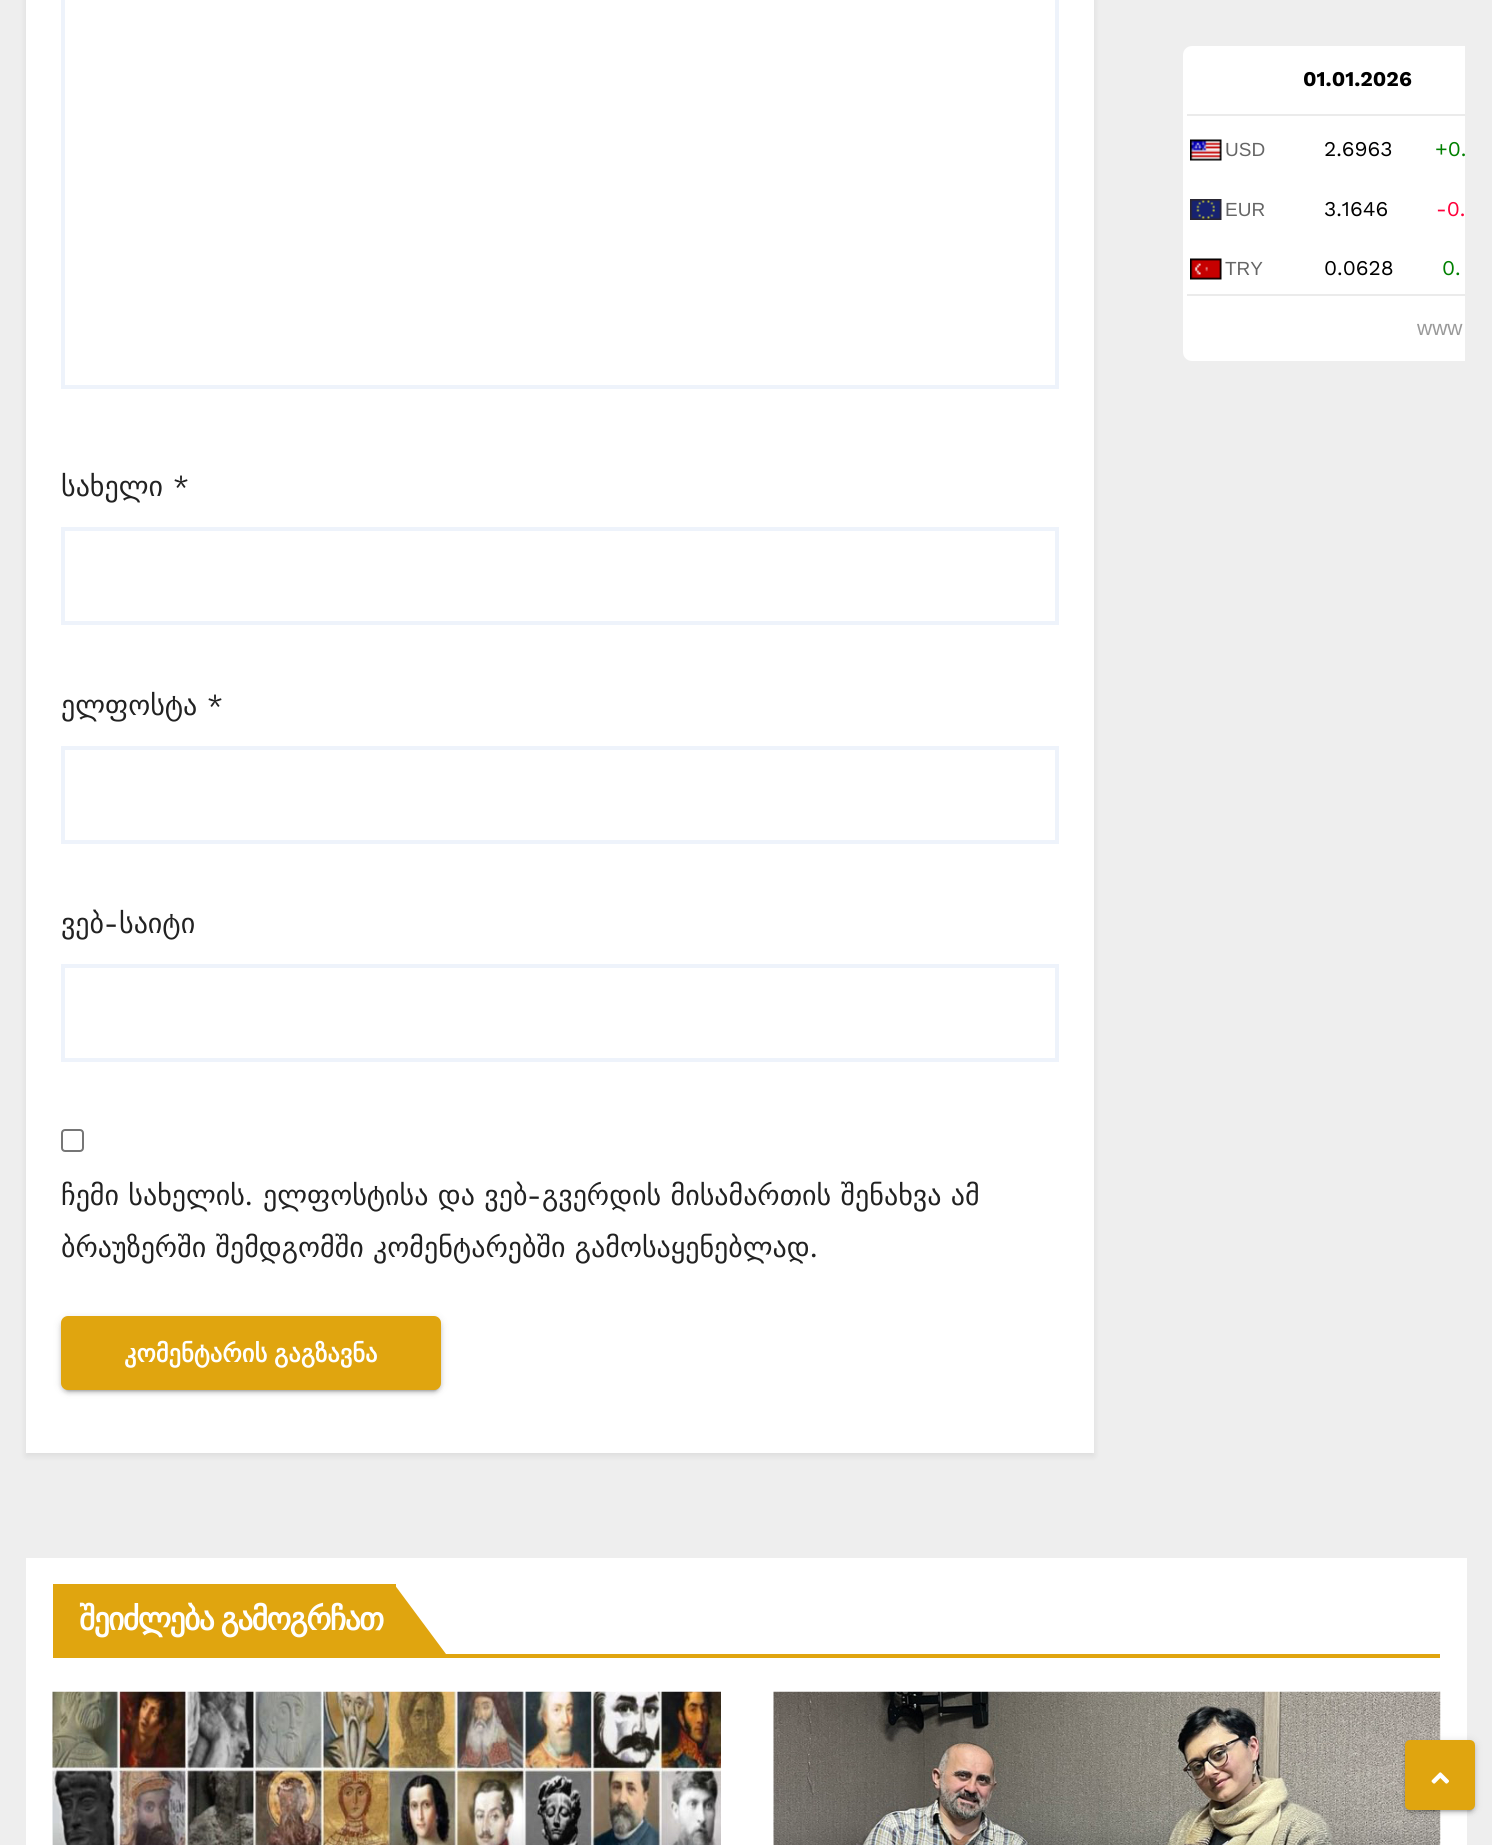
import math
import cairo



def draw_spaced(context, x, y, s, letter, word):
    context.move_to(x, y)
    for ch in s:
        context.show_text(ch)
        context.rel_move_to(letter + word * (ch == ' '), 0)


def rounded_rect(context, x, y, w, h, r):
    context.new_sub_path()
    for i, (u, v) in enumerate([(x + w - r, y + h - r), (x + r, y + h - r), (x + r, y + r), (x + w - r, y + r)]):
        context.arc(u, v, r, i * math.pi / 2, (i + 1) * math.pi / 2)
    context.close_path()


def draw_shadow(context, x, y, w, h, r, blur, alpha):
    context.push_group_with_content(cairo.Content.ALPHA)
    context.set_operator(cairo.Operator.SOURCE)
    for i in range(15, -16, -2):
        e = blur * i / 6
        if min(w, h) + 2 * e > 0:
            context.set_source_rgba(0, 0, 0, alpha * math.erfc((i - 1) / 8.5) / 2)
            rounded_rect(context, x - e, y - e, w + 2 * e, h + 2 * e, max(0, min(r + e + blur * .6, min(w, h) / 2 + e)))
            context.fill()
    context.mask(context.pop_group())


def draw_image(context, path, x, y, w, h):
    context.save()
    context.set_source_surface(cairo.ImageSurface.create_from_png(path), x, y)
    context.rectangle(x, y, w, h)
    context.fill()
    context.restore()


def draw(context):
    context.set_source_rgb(238 / 255, 238 / 255, 238 / 255)
    context.paint()
    context.set_source_rgb(1, 1, 1)
    context.new_path()
    context.move_to(1192, 46)
    context.line_to(1465, 46)
    context.line_to(1465, 361)
    context.line_to(1192, 361)
    context.curve_to(1187, 361, 1183, 357, 1183, 352)
    context.line_to(1183, 55)
    context.curve_to(1183, 50, 1187, 46, 1192, 46)
    context.close_path()
    context.fill()
    context.set_source_rgb(235 / 255, 235 / 255, 235 / 255)
    context.rectangle(1187, 114, 278, 2)
    context.fill()
    draw_image(context, "images/1.png", 1190, 139, 32, 22)
    draw_image(context, "images/2.png", 1190, 199, 32, 21)
    draw_image(context, "images/3.png", 1190, 258, 32, 22)
    context.rectangle(1187, 294, 278, 2)
    context.fill()
    context.set_source_rgb(0, 0, 0)
    draw_shadow(context, 26, -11, 1068, 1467, 0, 3.5, 0.08)
    context.set_source_rgb(1, 1, 1)
    context.rectangle(26, 0, 1068, 1453)
    context.fill()
    context.rectangle(63, -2, 994, 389)
    context.set_source_rgb(238 / 255, 243 / 255, 251 / 255)
    context.set_line_width(4)
    context.stroke()
    context.rectangle(63, 529, 994, 94)
    context.stroke()
    context.rectangle(63, 748, 994, 94)
    context.stroke()
    context.rectangle(63, 966, 994, 94)
    context.stroke()
    rounded_rect(context, 62, 1130, 21, 21, 3)
    context.set_source_rgb(118 / 255, 118 / 255, 118 / 255)
    context.set_line_width(2)
    context.stroke()
    context.set_source_rgb(0, 0, 0)
    draw_shadow(context, 61, 1318, 380, 73, 7, 4.5, 0.12)
    draw_shadow(context, 65, 1325, 373, 66, 4, 1, 0.2)
    draw_shadow(context, 61, 1320, 380, 73, 7, 2, 0.14)
    context.set_source_rgb(224 / 255, 165 / 255, 15 / 255)
    rounded_rect(context, 62, 1317, 378, 72, 6)
    context.fill_preserve()
    context.stroke()
    context.set_source_rgb(1, 1, 1)
    context.rectangle(26, 1558, 1441, 287)
    context.fill()
    context.set_source_rgb(224 / 255, 165 / 255, 15 / 255)
    context.rectangle(53, 1654, 1387, 4)
    context.fill()
    context.rectangle(53, 1584, 343, 70)
    context.fill()
    context.new_path()
    context.move_to(394, 1654)
    context.line_to(394, 1584)
    context.line_to(446, 1654)
    context.close_path()
    context.fill()
    draw_image(context, "images/4.png", 52, 1691, 669, 154)
    draw_image(context, "images/5.png", 773, 1691, 668, 154)
    context.set_source_rgb(0, 0, 0)
    draw_shadow(context, 1405, 1741, 70, 70, 5, 4.5, 0.12)
    draw_shadow(context, 1409, 1748, 63, 63, 2, 1, 0.2)
    draw_shadow(context, 1405, 1743, 70, 70, 5, 2, 0.14)
    context.set_source_rgb(224 / 255, 165 / 255, 15 / 255)
    rounded_rect(context, 1407, 1742, 66, 66, 3)
    context.fill_preserve()
    context.set_line_width(4)
    context.stroke()
    draw_image(context, "images/6.png", 1431, 1772, 18, 12)
    context.select_font_face("Work Sans", cairo.FontSlant.NORMAL, cairo.FontWeight.BOLD)
    context.set_font_size(21)
    context.set_source_rgb(0, 0, 0)
    context.move_to(1303, 86)
    context.show_text("01.01.2026")
    context.select_font_face("Liberation Sans")
    context.set_font_size(19)
    context.set_source_rgb(102 / 255, 102 / 255, 102 / 255)
    context.move_to(1225, 156)
    context.show_text("USD")
    context.select_font_face("Work Sans")
    context.set_font_size(21)
    context.set_source_rgb(0, 0, 0)
    context.move_to(1324, 156)
    context.show_text("2.6963")
    context.set_source_rgb(0, 128 / 255, 0)
    context.move_to(1435, 156)
    context.show_text("+0.")
    context.select_font_face("Liberation Sans")
    context.set_font_size(19)
    context.set_source_rgb(102 / 255, 102 / 255, 102 / 255)
    context.move_to(1225, 216)
    context.show_text("EUR")
    context.select_font_face("Work Sans")
    context.set_font_size(21)
    context.set_source_rgb(0, 0, 0)
    context.move_to(1324, 216)
    context.show_text("3.1646")
    context.set_source_rgb(1, 0, 58 / 255)
    context.move_to(1436, 216)
    context.show_text("-0.")
    context.select_font_face("Liberation Sans")
    context.set_font_size(19)
    context.set_source_rgb(102 / 255, 102 / 255, 102 / 255)
    context.move_to(1225, 275)
    context.show_text("TRY")
    context.select_font_face("Work Sans")
    context.set_font_size(21)
    context.set_source_rgb(0, 0, 0)
    context.move_to(1324, 275)
    context.show_text("0.0628")
    context.set_source_rgb(0, 128 / 255, 0)
    context.move_to(1442, 275)
    context.show_text("0.")
    context.select_font_face("Liberation Sans")
    context.set_source_rgb(153 / 255, 153 / 255, 153 / 255)
    context.move_to(1417, 335)
    context.show_text("www")
    context.select_font_face("DejaVu Sans")
    context.set_font_size(28)
    context.set_source_rgb(34 / 255, 34 / 255, 34 / 255)
    context.move_to(61, 496)
    context.show_text("სახელი")
    context.select_font_face("Work Sans")
    context.move_to(173, 496)
    context.show_text("*")
    context.select_font_face("DejaVu Sans")
    context.move_to(61, 715)
    context.show_text("ელფოსტა")
    context.select_font_face("Work Sans")
    context.move_to(207, 715)
    context.show_text("*")
    context.select_font_face("DejaVu Sans")
    context.move_to(61, 933)
    context.show_text("ვებ")
    context.select_font_face("Work Sans")
    context.move_to(104, 933)
    context.show_text("-")
    context.select_font_face("DejaVu Sans")
    context.move_to(119, 933)
    context.show_text("საიტი")
    draw_spaced(context, 61, 1205, "ჩემი სახელის", 0, 0.5)
    draw_spaced(context, 263, 1205, "ელფოსტისა და ვებ", 0, 0.5)
    context.select_font_face("Work Sans")
    context.move_to(527, 1205)
    context.show_text("-")
    context.select_font_face("DejaVu Sans")
    draw_spaced(context, 542, 1205, "გვერდის მისამართის შენახვა ამ", 0, 0.5)
    context.select_font_face("Work Sans")
    context.move_to(245, 1205)
    context.show_text(".")
    context.select_font_face("DejaVu Sans")
    draw_spaced(context, 61, 1257, "ბრაუზერში შემდგომში კომენტარებში გამოსაყენებლად", 0, 0.5)
    context.select_font_face("Work Sans")
    context.move_to(810, 1257)
    context.show_text(".")
    context.select_font_face("DejaVu Sans", cairo.FontSlant.NORMAL, cairo.FontWeight.BOLD)
    context.set_font_size(24.5)
    context.set_source_rgb(1, 1, 1)
    draw_spaced(context, 124, 1362, "კომენტარის გაგზავნა", 0, -1)
    context.set_font_size(31.5)
    draw_spaced(context, 79, 1630, "შეიძლება გამოგრჩათ", -1.6, -1)


surface = cairo.ImageSurface(cairo.Format.RGB24, 1492, 1845)
context = cairo.Context(surface)
options = cairo.FontOptions()
options.set_hint_metrics(cairo.HintMetrics.OFF)
options.set_hint_style(cairo.HintStyle.NONE)
context.set_font_options(options)
context.set_miter_limit(4)
draw(context)
surface.write_to_png("out.png")
